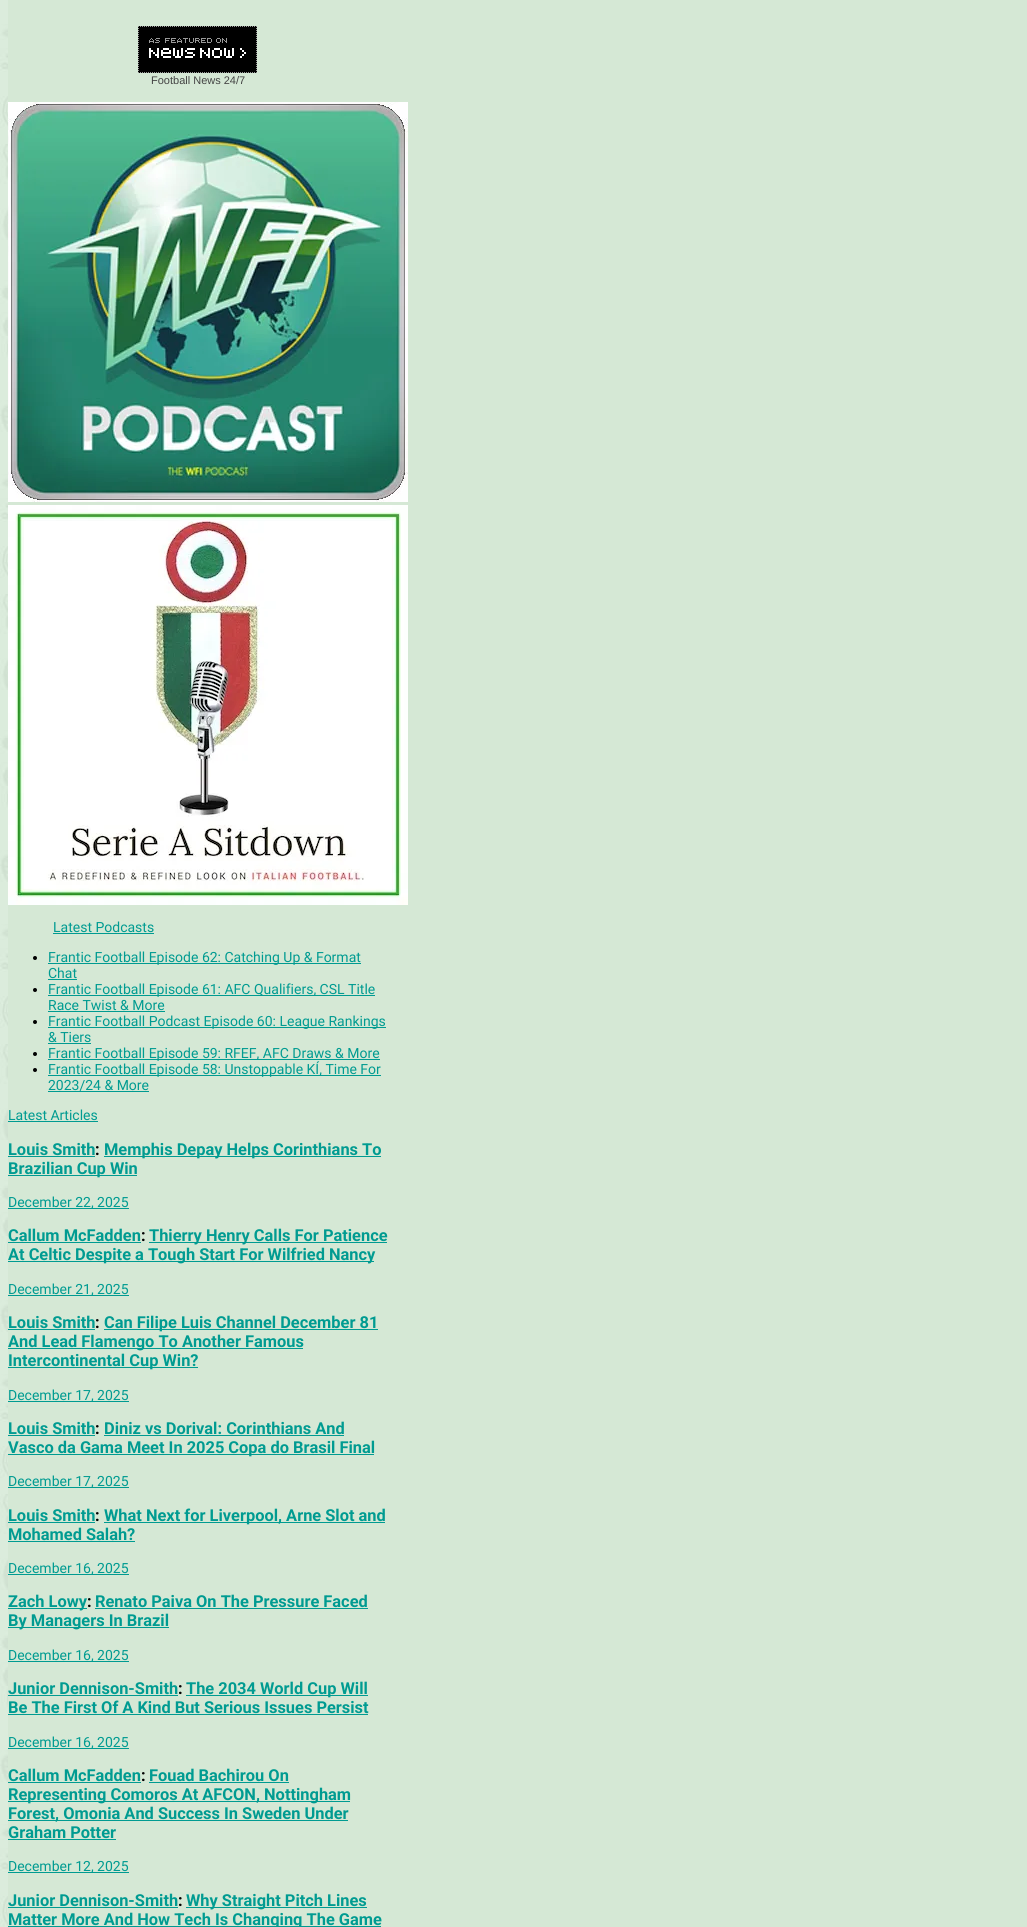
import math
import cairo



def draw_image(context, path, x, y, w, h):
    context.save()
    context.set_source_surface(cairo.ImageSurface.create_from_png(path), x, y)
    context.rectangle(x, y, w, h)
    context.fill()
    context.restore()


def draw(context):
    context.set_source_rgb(1, 1, 1)
    context.paint()
    draw_image(context, "images/1.png", 0, 0, 8, 1927)
    context.set_source_rgb(213 / 255, 232 / 255, 213 / 255)
    context.rectangle(8, 0, 1019, 1927)
    context.fill()
    draw_image(context, "images/2.png", 138, 26, 119, 47)
    draw_image(context, "images/3.png", 8, 102, 400, 400)
    draw_image(context, "images/4.png", 8, 505, 400, 400)
    context.set_source_rgb(0, 155 / 255, 145 / 255)
    context.rectangle(53, 933, 101, 1)
    context.fill()
    context.set_source_rgb(0, 0, 0)
    context.arc(35, 958, 2, 0, 2 * math.pi)
    context.fill()
    context.set_source_rgb(0, 155 / 255, 145 / 255)
    context.rectangle(48, 963, 313, 1)
    context.fill()
    context.rectangle(48, 979, 29, 1)
    context.fill()
    context.set_source_rgb(0, 0, 0)
    context.arc(35, 990, 2, 0, 2 * math.pi)
    context.fill()
    context.set_source_rgb(0, 155 / 255, 145 / 255)
    context.rectangle(48, 995, 327, 1)
    context.fill()
    context.rectangle(48, 1011, 117, 1)
    context.fill()
    context.set_source_rgb(0, 0, 0)
    context.arc(35, 1022, 2, 0, 2 * math.pi)
    context.fill()
    context.set_source_rgb(0, 155 / 255, 145 / 255)
    context.rectangle(48, 1027, 338, 1)
    context.fill()
    context.rectangle(48, 1043, 43, 1)
    context.fill()
    context.set_source_rgb(0, 0, 0)
    context.arc(35, 1054, 2, 0, 2 * math.pi)
    context.fill()
    context.set_source_rgb(0, 155 / 255, 145 / 255)
    context.rectangle(48, 1059, 332, 1)
    context.fill()
    context.set_source_rgb(0, 0, 0)
    context.arc(35, 1070, 2, 0, 2 * math.pi)
    context.fill()
    context.set_source_rgb(0, 155 / 255, 145 / 255)
    context.rectangle(48, 1075, 333, 1)
    context.fill()
    context.rectangle(48, 1091, 101, 1)
    context.fill()
    context.rectangle(8, 1121, 90, 1)
    context.fill()
    context.rectangle(8, 1156, 87, 1)
    context.fill()
    context.rectangle(104, 1156, 277, 1)
    context.fill()
    context.rectangle(8, 1175, 129, 1)
    context.fill()
    context.rectangle(8, 1208, 121, 1)
    context.fill()
    context.rectangle(8, 1242, 133, 1)
    context.fill()
    context.rectangle(149, 1242, 238, 1)
    context.fill()
    context.rectangle(8, 1261, 366, 1)
    context.fill()
    context.rectangle(8, 1295, 121, 1)
    context.fill()
    context.rectangle(8, 1329, 87, 1)
    context.fill()
    context.rectangle(104, 1329, 274, 1)
    context.fill()
    context.rectangle(8, 1348, 295, 1)
    context.fill()
    context.rectangle(8, 1367, 190, 1)
    context.fill()
    context.rectangle(8, 1401, 121, 1)
    context.fill()
    context.rectangle(8, 1435, 87, 1)
    context.fill()
    context.rectangle(104, 1435, 240, 1)
    context.fill()
    context.rectangle(8, 1454, 366, 1)
    context.fill()
    context.rectangle(8, 1487, 121, 1)
    context.fill()
    context.rectangle(8, 1522, 87, 1)
    context.fill()
    context.rectangle(104, 1522, 281, 1)
    context.fill()
    context.rectangle(8, 1541, 127, 1)
    context.fill()
    context.rectangle(8, 1574, 121, 1)
    context.fill()
    context.rectangle(8, 1608, 79, 1)
    context.fill()
    context.rectangle(95, 1608, 273, 1)
    context.fill()
    context.rectangle(8, 1627, 161, 1)
    context.fill()
    context.rectangle(8, 1661, 121, 1)
    context.fill()
    context.rectangle(8, 1695, 170, 1)
    context.fill()
    context.rectangle(186, 1695, 182, 1)
    context.fill()
    context.rectangle(8, 1714, 360, 1)
    context.fill()
    context.rectangle(8, 1748, 121, 1)
    context.fill()
    context.rectangle(8, 1782, 133, 1)
    context.fill()
    context.rectangle(149, 1782, 140, 1)
    context.fill()
    context.rectangle(8, 1801, 342, 1)
    context.fill()
    context.rectangle(8, 1820, 340, 1)
    context.fill()
    context.rectangle(8, 1839, 108, 1)
    context.fill()
    context.rectangle(8, 1872, 121, 1)
    context.fill()
    context.rectangle(8, 1907, 170, 1)
    context.fill()
    context.rectangle(186, 1907, 181, 1)
    context.fill()
    context.rectangle(8, 1926, 373, 1)
    context.fill()
    context.select_font_face("Liberation Sans")
    context.set_font_size(11)
    context.set_source_rgb(68 / 255, 68 / 255, 68 / 255)
    context.move_to(151, 84)
    context.show_text("Football News 24/7")
    context.select_font_face("Roboto")
    context.set_font_size(14)
    context.set_source_rgb(0, 155 / 255, 145 / 255)
    context.move_to(53, 932)
    context.show_text("Latest Podcasts")
    context.move_to(48, 962)
    context.show_text("Frantic Football Episode 62: Catching Up & Format")
    context.move_to(48, 978)
    context.show_text("Chat")
    context.move_to(48, 994)
    context.show_text("Frantic Football Episode 61: AFC Qualifiers, CSL Title")
    context.move_to(48, 1010)
    context.show_text("Race Twist & More")
    context.move_to(48, 1026)
    context.show_text("Frantic Football Podcast Episode 60: League Rankings")
    context.move_to(48, 1042)
    context.show_text("& Tiers")
    context.move_to(48, 1058)
    context.show_text("Frantic Football Episode 59: RFEF, AFC Draws & More")
    context.move_to(48, 1074)
    context.show_text("Frantic Football Episode 58: Unstoppable KÍ, Time For")
    context.move_to(48, 1090)
    context.show_text("2023/24 & More")
    context.move_to(8, 1120)
    context.show_text("Latest Articles")
    context.select_font_face("Roboto", cairo.FontSlant.NORMAL, cairo.FontWeight.BOLD)
    context.set_font_size(16.4)
    context.move_to(8, 1155)
    context.show_text("Louis Smith")
    context.set_source_rgb(0, 0, 0)
    context.move_to(95, 1155)
    context.show_text(":")
    context.set_source_rgb(0, 155 / 255, 145 / 255)
    context.move_to(104, 1155)
    context.show_text("Memphis Depay Helps Corinthians To")
    context.move_to(8, 1174)
    context.show_text("Brazilian Cup Win")
    context.select_font_face("Roboto")
    context.set_font_size(14)
    context.move_to(8, 1207)
    context.show_text("December 22, 2025")
    context.select_font_face("Roboto", cairo.FontSlant.NORMAL, cairo.FontWeight.BOLD)
    context.set_font_size(16.4)
    context.move_to(8, 1241)
    context.show_text("Callum McFadden")
    context.set_source_rgb(0, 0, 0)
    context.move_to(141, 1241)
    context.show_text(":")
    context.set_source_rgb(0, 155 / 255, 145 / 255)
    context.move_to(149, 1241)
    context.show_text("Thierry Henry Calls For Patience")
    context.move_to(8, 1260)
    context.show_text("At Celtic Despite a Tough Start For Wilfried Nancy")
    context.select_font_face("Roboto")
    context.set_font_size(14)
    context.move_to(8, 1294)
    context.show_text("December 21, 2025")
    context.select_font_face("Roboto", cairo.FontSlant.NORMAL, cairo.FontWeight.BOLD)
    context.set_font_size(16.4)
    context.move_to(8, 1328)
    context.show_text("Louis Smith")
    context.set_source_rgb(0, 0, 0)
    context.move_to(95, 1328)
    context.show_text(":")
    context.set_source_rgb(0, 155 / 255, 145 / 255)
    context.move_to(104, 1328)
    context.show_text("Can Filipe Luis Channel December 81")
    context.move_to(8, 1347)
    context.show_text("And Lead Flamengo To Another Famous")
    context.move_to(8, 1366)
    context.show_text("Intercontinental Cup Win?")
    context.select_font_face("Roboto")
    context.set_font_size(14)
    context.move_to(8, 1400)
    context.show_text("December 17, 2025")
    context.select_font_face("Roboto", cairo.FontSlant.NORMAL, cairo.FontWeight.BOLD)
    context.set_font_size(16.4)
    context.move_to(8, 1434)
    context.show_text("Louis Smith")
    context.set_source_rgb(0, 0, 0)
    context.move_to(95, 1434)
    context.show_text(":")
    context.set_source_rgb(0, 155 / 255, 145 / 255)
    context.move_to(104, 1434)
    context.show_text("Diniz vs Dorival: Corinthians And")
    context.move_to(8, 1453)
    context.show_text("Vasco da Gama Meet In 2025 Copa do Brasil Final")
    context.select_font_face("Roboto")
    context.set_font_size(14)
    context.move_to(8, 1486)
    context.show_text("December 17, 2025")
    context.select_font_face("Roboto", cairo.FontSlant.NORMAL, cairo.FontWeight.BOLD)
    context.set_font_size(16.4)
    context.move_to(8, 1521)
    context.show_text("Louis Smith")
    context.set_source_rgb(0, 0, 0)
    context.move_to(95, 1521)
    context.show_text(":")
    context.set_source_rgb(0, 155 / 255, 145 / 255)
    context.move_to(104, 1521)
    context.show_text("What Next for Liverpool, Arne Slot and")
    context.move_to(8, 1540)
    context.show_text("Mohamed Salah?")
    context.select_font_face("Roboto")
    context.set_font_size(14)
    context.move_to(8, 1573)
    context.show_text("December 16, 2025")
    context.select_font_face("Roboto", cairo.FontSlant.NORMAL, cairo.FontWeight.BOLD)
    context.set_font_size(16.4)
    context.move_to(8, 1607)
    context.show_text("Zach Lowy")
    context.set_source_rgb(0, 0, 0)
    context.move_to(87, 1607)
    context.show_text(":")
    context.set_source_rgb(0, 155 / 255, 145 / 255)
    context.move_to(95, 1607)
    context.show_text("Renato Paiva On The Pressure Faced")
    context.move_to(8, 1626)
    context.show_text("By Managers In Brazil")
    context.select_font_face("Roboto")
    context.set_font_size(14)
    context.move_to(8, 1660)
    context.show_text("December 16, 2025")
    context.select_font_face("Roboto", cairo.FontSlant.NORMAL, cairo.FontWeight.BOLD)
    context.set_font_size(16.4)
    context.move_to(8, 1694)
    context.show_text("Junior Dennison-Smith")
    context.set_source_rgb(0, 0, 0)
    context.move_to(178, 1694)
    context.show_text(":")
    context.set_source_rgb(0, 155 / 255, 145 / 255)
    context.move_to(186, 1694)
    context.show_text("The 2034 World Cup Will")
    context.move_to(8, 1713)
    context.show_text("Be The First Of A Kind But Serious Issues Persist")
    context.select_font_face("Roboto")
    context.set_font_size(14)
    context.move_to(8, 1747)
    context.show_text("December 16, 2025")
    context.select_font_face("Roboto", cairo.FontSlant.NORMAL, cairo.FontWeight.BOLD)
    context.set_font_size(16.4)
    context.move_to(8, 1781)
    context.show_text("Callum McFadden")
    context.set_source_rgb(0, 0, 0)
    context.move_to(141, 1781)
    context.show_text(":")
    context.set_source_rgb(0, 155 / 255, 145 / 255)
    context.move_to(149, 1781)
    context.show_text("Fouad Bachirou On")
    context.move_to(8, 1800)
    context.show_text("Representing Comoros At AFCON, Nottingham")
    context.move_to(8, 1819)
    context.show_text("Forest, Omonia And Success In Sweden Under")
    context.move_to(8, 1838)
    context.show_text("Graham Potter")
    context.select_font_face("Roboto")
    context.set_font_size(14)
    context.move_to(8, 1871)
    context.show_text("December 12, 2025")
    context.select_font_face("Roboto", cairo.FontSlant.NORMAL, cairo.FontWeight.BOLD)
    context.set_font_size(16.4)
    context.move_to(8, 1906)
    context.show_text("Junior Dennison-Smith")
    context.set_source_rgb(0, 0, 0)
    context.move_to(178, 1906)
    context.show_text(":")
    context.set_source_rgb(0, 155 / 255, 145 / 255)
    context.move_to(186, 1906)
    context.show_text("Why Straight Pitch Lines")
    context.move_to(8, 1925)
    context.show_text("Matter More And How Tech Is Changing The Game")


surface = cairo.ImageSurface(cairo.Format.RGB24, 1027, 1927)
context = cairo.Context(surface)
options = cairo.FontOptions()
options.set_hint_metrics(cairo.HintMetrics.OFF)
options.set_hint_style(cairo.HintStyle.NONE)
context.set_font_options(options)
context.set_miter_limit(4)
draw(context)
surface.write_to_png("out.png")
